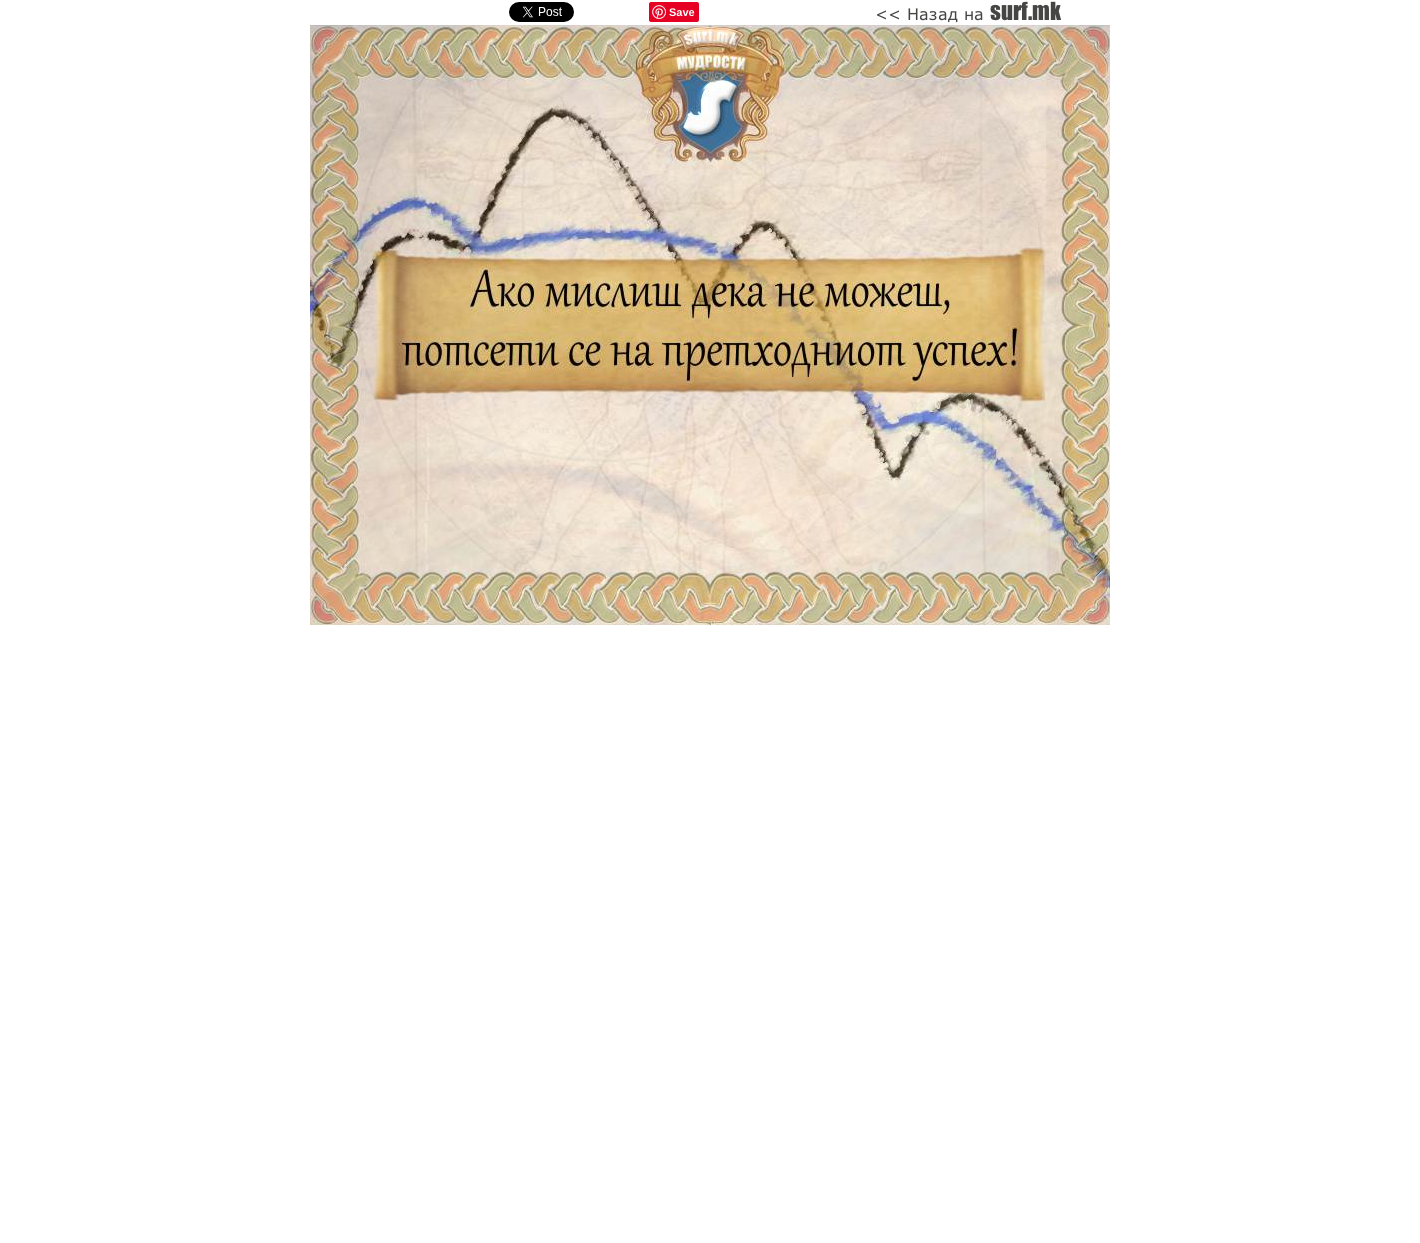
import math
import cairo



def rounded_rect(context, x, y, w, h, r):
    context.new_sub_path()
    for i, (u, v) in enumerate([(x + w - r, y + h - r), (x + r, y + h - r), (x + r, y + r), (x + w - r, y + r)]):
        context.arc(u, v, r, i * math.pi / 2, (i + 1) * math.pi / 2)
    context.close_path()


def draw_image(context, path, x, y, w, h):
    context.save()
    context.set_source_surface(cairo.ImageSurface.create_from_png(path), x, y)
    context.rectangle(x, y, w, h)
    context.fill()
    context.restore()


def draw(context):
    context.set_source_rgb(1, 1, 1)
    context.paint()
    draw_image(context, "images/1.png", 509, 2, 65, 20)
    context.set_source_rgb(230 / 255, 0, 35 / 255)
    rounded_rect(context, 649, 2, 50, 20, 2)
    context.fill()
    draw_image(context, "images/2.png", 652, 5, 14, 14)
    draw_image(context, "images/3.png", 877, 1, 184, 22)
    draw_image(context, "images/4.png", 310, 25, 800, 600)
    context.select_font_face("Liberation Sans", cairo.FontSlant.NORMAL, cairo.FontWeight.BOLD)
    context.set_font_size(11)
    context.set_source_rgb(1, 1, 1)
    context.move_to(669, 16)
    context.show_text("Save")


surface = cairo.ImageSurface(cairo.Format.RGB24, 1420, 1243)
context = cairo.Context(surface)
options = cairo.FontOptions()
options.set_hint_metrics(cairo.HintMetrics.OFF)
options.set_hint_style(cairo.HintStyle.NONE)
context.set_font_options(options)
context.set_miter_limit(4)
draw(context)
surface.write_to_png("out.png")
